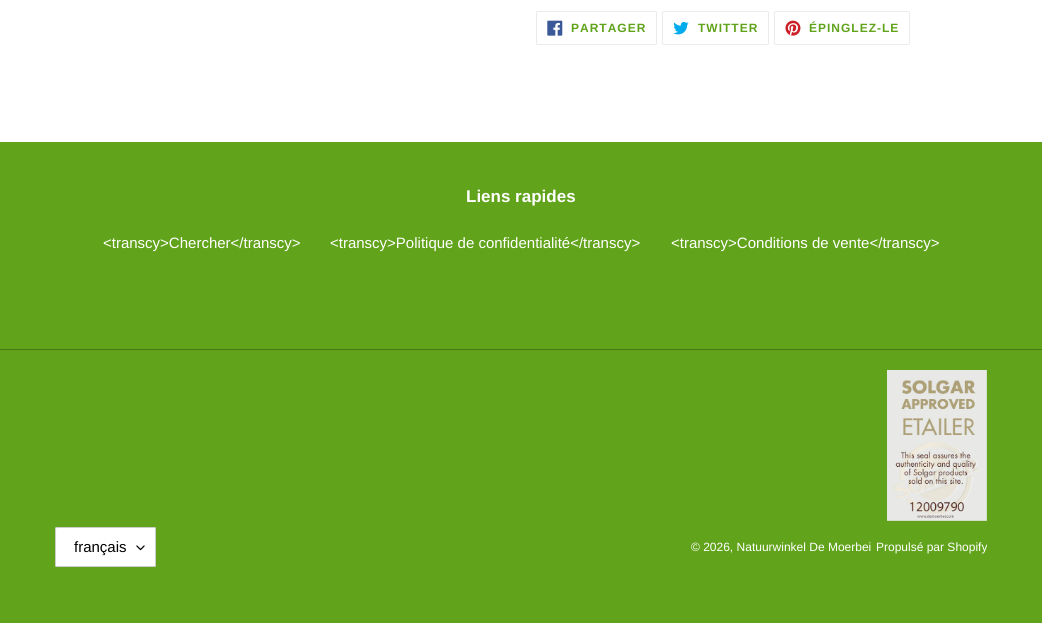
import math
import cairo



def draw_spaced(context, x, y, s, letter, word):
    context.move_to(x, y)
    for ch in s:
        context.show_text(ch)
        context.rel_move_to(letter + word * (ch == ' '), 0)


def rounded_rect(context, x, y, w, h, r):
    context.new_sub_path()
    for i, (u, v) in enumerate([(x + w - r, y + h - r), (x + r, y + h - r), (x + r, y + r), (x + w - r, y + r)]):
        context.arc(u, v, r, i * math.pi / 2, (i + 1) * math.pi / 2)
    context.close_path()


def draw_image(context, path, x, y, w, h):
    context.save()
    context.set_source_surface(cairo.ImageSurface.create_from_png(path), x, y)
    context.rectangle(x, y, w, h)
    context.fill()
    context.restore()


def draw(context):
    context.set_source_rgb(1, 1, 1)
    context.paint()
    rounded_rect(context, 536.5, 11.5, 120, 33, 1.5)
    context.set_source_rgb(235 / 255, 235 / 255, 235 / 255)
    context.set_line_width(1)
    context.stroke()
    draw_image(context, "images/1.png", 547, 20, 16, 16)
    rounded_rect(context, 662.5, 11.5, 106, 33, 1.5)
    context.stroke()
    draw_image(context, "images/2.png", 673, 21, 16, 14)
    rounded_rect(context, 774.5, 11.5, 135, 33, 1.5)
    context.stroke()
    draw_image(context, "images/3.png", 785, 20, 16, 16)
    context.set_source_rgb(97 / 255, 163 / 255, 27 / 255)
    context.rectangle(0, 142, 1042, 481)
    context.fill()
    context.set_source_rgb(71 / 255, 119 / 255, 20 / 255)
    context.rectangle(0, 349, 1042, 1)
    context.fill()
    draw_image(context, "images/4.png", 887, 370, 100, 151)
    context.set_source_rgb(1, 1, 1)
    rounded_rect(context, 55, 527, 101, 40, 2)
    context.fill()
    draw_image(context, "images/5.png", 136, 545, 9, 6)
    rounded_rect(context, 55.5, 527.5, 100, 39, 1.5)
    context.set_source_rgb(204 / 255, 204 / 255, 204 / 255)
    context.stroke()
    context.select_font_face("Liberation Sans", cairo.FontSlant.NORMAL, cairo.FontWeight.BOLD)
    context.set_font_size(12)
    context.set_source_rgb(97 / 255, 163 / 255, 27 / 255)
    draw_spaced(context, 571, 32, "PARTAGER", 1, 0)
    draw_spaced(context, 698, 32, "TWITTER", 1, 0)
    draw_spaced(context, 809, 32, "ÉPINGLEZ-LE", 1, 0)
    context.set_font_size(17)
    context.set_source_rgb(1, 1, 1)
    context.move_to(466, 202)
    context.show_text("Liens rapides")
    context.select_font_face("Liberation Sans")
    context.set_font_size(15)
    context.move_to(103, 248)
    context.show_text("<transcy>Chercher</transcy>")
    context.move_to(330, 248)
    context.show_text("<transcy>Politique de confidentialité</transcy>")
    context.move_to(671, 248)
    context.show_text("<transcy>Conditions de vente</transcy>")
    context.set_source_rgb(0, 0, 0)
    context.move_to(74, 552)
    context.show_text("français")
    context.set_font_size(12)
    context.set_source_rgb(1, 1, 1)
    context.move_to(691, 551)
    context.show_text("© 2026, Natuurwinkel De Moerbei")
    context.move_to(876, 551)
    context.show_text("Propulsé par Shopify")


surface = cairo.ImageSurface(cairo.Format.RGB24, 1042, 623)
context = cairo.Context(surface)
options = cairo.FontOptions()
options.set_hint_metrics(cairo.HintMetrics.OFF)
options.set_hint_style(cairo.HintStyle.NONE)
context.set_font_options(options)
context.set_miter_limit(4)
draw(context)
surface.write_to_png("out.png")
